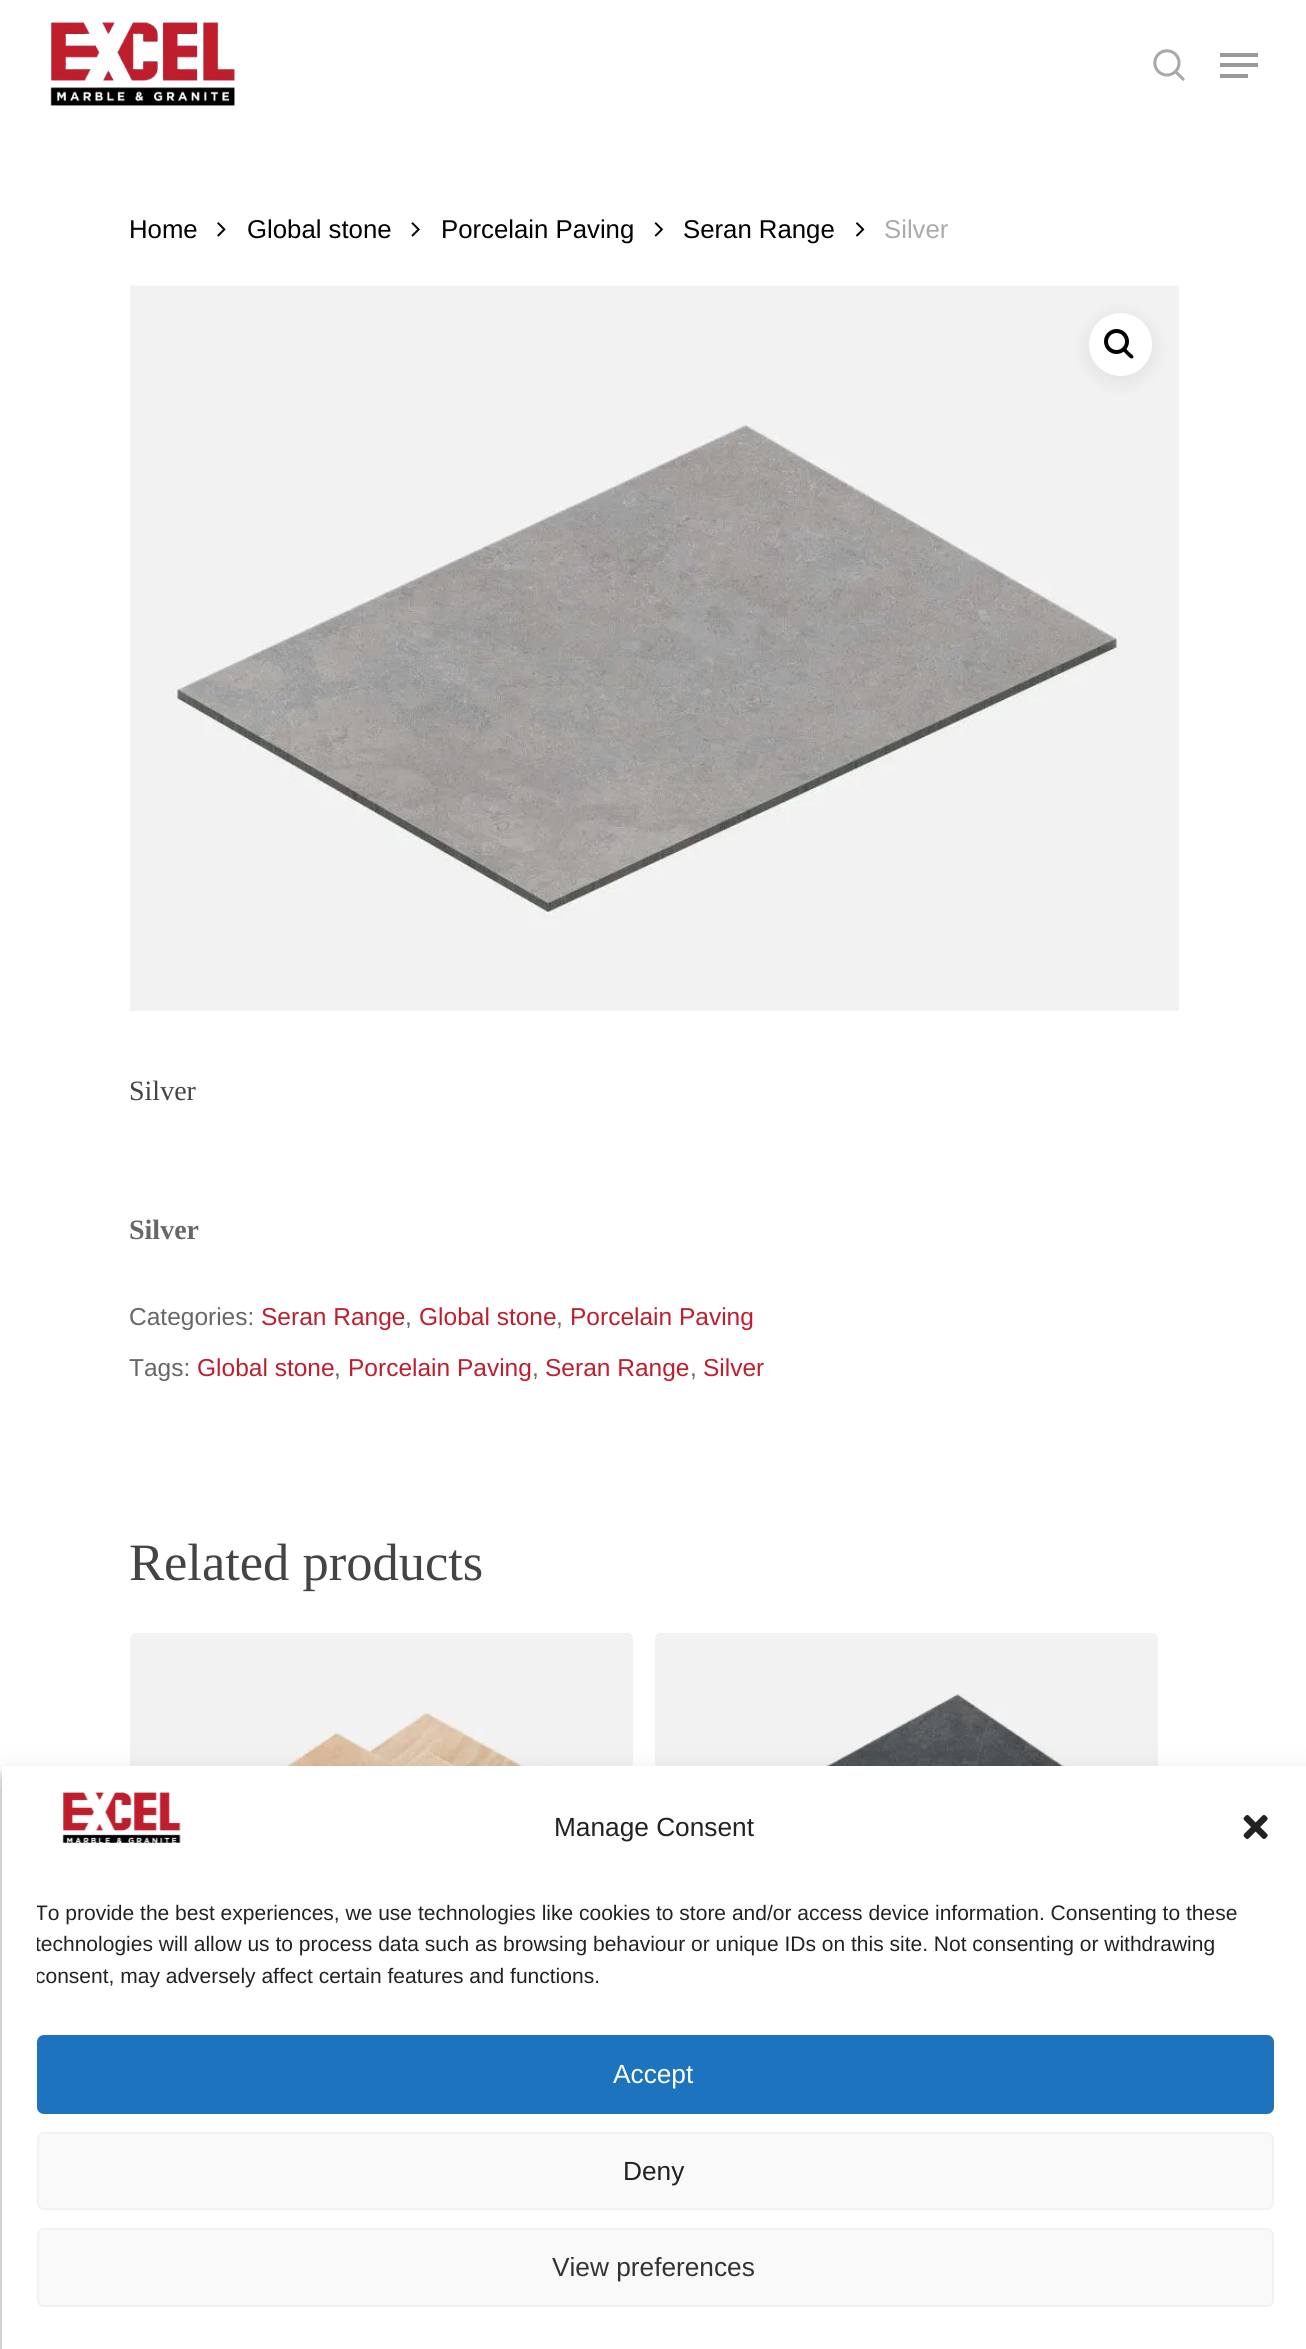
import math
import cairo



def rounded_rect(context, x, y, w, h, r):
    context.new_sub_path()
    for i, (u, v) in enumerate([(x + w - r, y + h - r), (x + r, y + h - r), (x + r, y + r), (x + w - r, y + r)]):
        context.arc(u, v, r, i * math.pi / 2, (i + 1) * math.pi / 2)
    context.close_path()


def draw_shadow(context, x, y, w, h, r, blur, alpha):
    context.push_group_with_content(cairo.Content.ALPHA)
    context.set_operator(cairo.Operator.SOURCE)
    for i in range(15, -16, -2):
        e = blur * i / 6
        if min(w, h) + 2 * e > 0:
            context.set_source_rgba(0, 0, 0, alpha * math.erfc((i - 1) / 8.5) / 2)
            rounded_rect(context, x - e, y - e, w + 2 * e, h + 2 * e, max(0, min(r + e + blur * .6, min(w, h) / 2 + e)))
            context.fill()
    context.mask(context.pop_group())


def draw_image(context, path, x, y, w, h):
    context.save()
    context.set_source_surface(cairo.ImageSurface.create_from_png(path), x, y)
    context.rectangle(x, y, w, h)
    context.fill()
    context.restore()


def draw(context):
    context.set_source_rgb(1, 1, 1)
    context.paint()
    draw_image(context, "images/1.png", 50, 22, 185, 84)
    draw_image(context, "images/2.png", 1153, 49, 32, 32)
    context.set_source_rgb(153 / 255, 153 / 255, 153 / 255)
    context.rectangle(1220, 53, 38, 4)
    context.fill()
    context.rectangle(1220, 74, 28, 4)
    context.fill()
    context.rectangle(1220, 63, 38, 4)
    context.fill()
    draw_image(context, "images/3.png", 217, 222, 9, 15)
    draw_image(context, "images/4.png", 411, 222, 9, 15)
    draw_image(context, "images/5.png", 654, 222, 9, 15)
    draw_image(context, "images/6.png", 856, 222, 9, 15)
    draw_image(context, "images/7.png", 130, 285, 1049, 726)
    context.set_source_rgb(0, 0, 0)
    draw_shadow(context, 1089, 317, 63, 63, 31.5, 10.5, 0.08)
    context.set_source_rgb(1, 1, 1)
    context.arc(1120.5, 344.5, 31.5, 0, 2 * math.pi)
    context.fill()
    context.arc(1116.5, 341.5, 10.5, 0, 2 * math.pi)
    context.set_source_rgb(0, 0, 0)
    context.set_line_width(4)
    context.stroke()
    context.new_path()
    context.move_to(1123, 348)
    context.curve_to(1125, 346.5, 1128, 351, 1129, 352)
    context.curve_to(1130, 353, 1135, 356, 1133, 358)
    context.curve_to(1131, 360, 1127.5, 355.5, 1126.5, 354.5)
    context.curve_to(1125.5, 353.5, 1121, 350, 1123, 348)
    context.close_path()
    context.fill()
    draw_image(context, "images/8.png", 130, 1633, 503, 133)
    draw_image(context, "images/9.png", 655, 1633, 503, 133)
    context.set_source_rgb(0, 0, 0)
    draw_shadow(context, 2, 1776, 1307, 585, 0, 5, 0.23)
    draw_shadow(context, 2, 1783, 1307, 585, 0, 17.5, 0.19)
    context.set_source_rgb(1, 1, 1)
    context.rectangle(2, 1766, 1304, 583)
    context.fill()
    draw_image(context, "images/10.png", 62, 1792, 119, 51)
    draw_image(context, "images/11.png", 1243, 1815, 25, 24)
    context.set_source_rgb(30 / 255, 115 / 255, 190 / 255)
    rounded_rect(context, 38, 2036, 1235, 77, 6)
    context.fill_preserve()
    context.set_line_width(2)
    context.stroke()
    context.set_source_rgb(249 / 255, 249 / 255, 249 / 255)
    rounded_rect(context, 38, 2133, 1235, 76, 6)
    context.fill_preserve()
    context.set_source_rgb(242 / 255, 242 / 255, 242 / 255)
    context.stroke()
    context.set_source_rgb(249 / 255, 249 / 255, 249 / 255)
    rounded_rect(context, 38, 2229, 1235, 77, 6)
    context.fill_preserve()
    context.set_source_rgb(242 / 255, 242 / 255, 242 / 255)
    context.stroke()
    context.select_font_face("Liberation Sans")
    context.set_font_size(25.75)
    context.set_source_rgb(0, 0, 0)
    context.move_to(129, 238)
    context.show_text("Home")
    context.move_to(247, 238)
    context.show_text("Global stone")
    context.move_to(441, 238)
    context.show_text("Porcelain Paving")
    context.move_to(683, 238)
    context.show_text("Seran Range")
    context.set_source_rgb(171 / 255, 171 / 255, 171 / 255)
    context.move_to(884, 238)
    context.show_text("Silver")
    context.select_font_face("Liberation Serif")
    context.set_font_size(28)
    context.set_source_rgb(68 / 255, 68 / 255, 68 / 255)
    context.move_to(129, 1100)
    context.show_text("Silver")
    context.select_font_face("Liberation Serif", cairo.FontSlant.NORMAL, cairo.FontWeight.BOLD)
    context.set_source_rgb(103 / 255, 103 / 255, 103 / 255)
    context.move_to(129, 1239)
    context.show_text("Silver")
    context.select_font_face("Liberation Sans")
    context.set_font_size(24.5)
    context.move_to(129, 1325)
    context.show_text("Categories:")
    context.set_source_rgb(191 / 255, 30 / 255, 46 / 255)
    context.move_to(261, 1325)
    context.show_text("Seran Range")
    context.set_source_rgb(103 / 255, 103 / 255, 103 / 255)
    context.move_to(405, 1325)
    context.show_text(",")
    context.set_source_rgb(191 / 255, 30 / 255, 46 / 255)
    context.move_to(419, 1325)
    context.show_text("Global stone")
    context.set_source_rgb(103 / 255, 103 / 255, 103 / 255)
    context.move_to(556, 1325)
    context.show_text(",")
    context.set_source_rgb(191 / 255, 30 / 255, 46 / 255)
    context.move_to(570, 1325)
    context.show_text("Porcelain Paving")
    context.set_source_rgb(103 / 255, 103 / 255, 103 / 255)
    context.move_to(129, 1376)
    context.show_text("Tags:")
    context.set_source_rgb(191 / 255, 30 / 255, 46 / 255)
    context.move_to(197, 1376)
    context.show_text("Global stone")
    context.set_source_rgb(103 / 255, 103 / 255, 103 / 255)
    context.move_to(334, 1376)
    context.show_text(",")
    context.set_source_rgb(191 / 255, 30 / 255, 46 / 255)
    context.move_to(348, 1376)
    context.show_text("Porcelain Paving")
    context.set_source_rgb(103 / 255, 103 / 255, 103 / 255)
    context.move_to(532, 1376)
    context.show_text(",")
    context.set_source_rgb(191 / 255, 30 / 255, 46 / 255)
    context.move_to(545, 1376)
    context.show_text("Seran Range")
    context.set_source_rgb(103 / 255, 103 / 255, 103 / 255)
    context.move_to(690, 1376)
    context.show_text(",")
    context.set_source_rgb(191 / 255, 30 / 255, 46 / 255)
    context.move_to(703, 1376)
    context.show_text("Silver")
    context.select_font_face("Liberation Serif")
    context.set_font_size(52.5)
    context.set_source_rgb(68 / 255, 68 / 255, 68 / 255)
    context.move_to(129, 1580)
    context.show_text("Related products")
    context.select_font_face("Liberation Sans")
    context.set_font_size(26.25)
    context.set_source_rgb(34 / 255, 34 / 255, 34 / 255)
    context.move_to(554, 1836)
    context.show_text("Manage Consent")
    context.save()
    context.rectangle(37, 1897, 1237, 103)
    context.clip()
    context.set_font_size(21)
    context.move_to(35, 1920)
    context.show_text("To provide the best experiences, we use technologies like cookies to store and/or access device information. Consenting to these")
    context.move_to(35, 1951)
    context.show_text("technologies will allow us to process data such as browsing behaviour or unique IDs on this site. Not consenting or withdrawing")
    context.move_to(35, 1983)
    context.show_text("consent, may adversely affect certain features and functions.")
    context.restore()
    context.set_source_rgb(1, 1, 1)
    context.move_to(613, 2083)
    context.show_text("Accept")
    context.set_source_rgb(34 / 255, 34 / 255, 34 / 255)
    context.move_to(623, 2180)
    context.show_text("Deny")
    context.set_source_rgb(51 / 255, 51 / 255, 51 / 255)
    context.move_to(552, 2276)
    context.show_text("View preferences")


surface = cairo.ImageSurface(cairo.Format.RGB24, 1306, 2349)
context = cairo.Context(surface)
options = cairo.FontOptions()
options.set_hint_metrics(cairo.HintMetrics.OFF)
options.set_hint_style(cairo.HintStyle.NONE)
context.set_font_options(options)
context.set_miter_limit(4)
draw(context)
surface.write_to_png("out.png")
